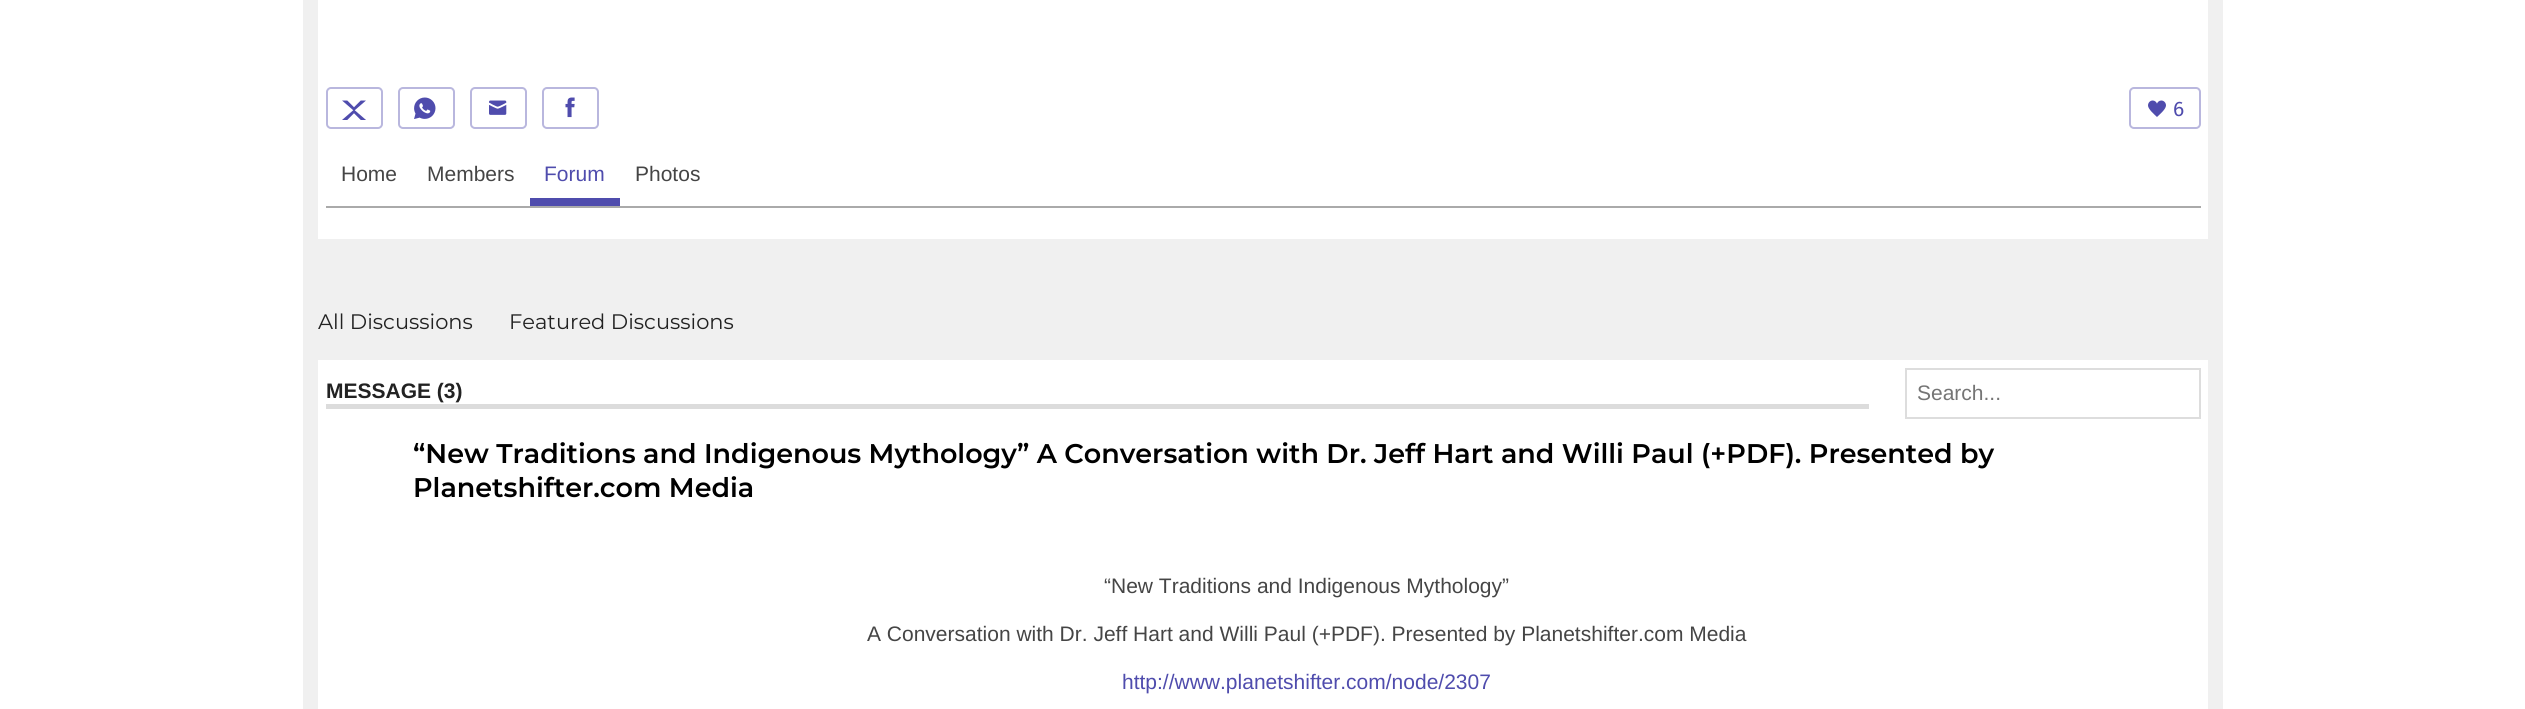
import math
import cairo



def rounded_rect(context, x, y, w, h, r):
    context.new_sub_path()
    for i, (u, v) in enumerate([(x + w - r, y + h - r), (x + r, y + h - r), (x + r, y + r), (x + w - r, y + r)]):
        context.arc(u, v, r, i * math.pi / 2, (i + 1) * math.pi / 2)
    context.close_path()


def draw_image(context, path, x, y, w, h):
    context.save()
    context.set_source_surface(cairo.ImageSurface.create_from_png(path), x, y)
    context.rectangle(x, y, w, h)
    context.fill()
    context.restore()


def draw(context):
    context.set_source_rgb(1, 1, 1)
    context.paint()
    context.set_source_rgb(240 / 255, 240 / 255, 240 / 255)
    context.rectangle(303, 0, 1920, 709)
    context.fill()
    context.set_source_rgb(1, 1, 1)
    context.rectangle(318, 0, 1890, 239)
    context.fill()
    rounded_rect(context, 327, 88, 55, 40, 4)
    context.set_source_rgb(185 / 255, 183 / 255, 222 / 255)
    context.stroke()
    draw_image(context, "images/1.png", 342, 100, 24, 20)
    rounded_rect(context, 399, 88, 55, 40, 4)
    context.stroke()
    draw_image(context, "images/2.png", 414, 97, 22, 22)
    rounded_rect(context, 471, 88, 55, 40, 4)
    context.stroke()
    draw_image(context, "images/3.png", 489, 100, 18, 15)
    rounded_rect(context, 543, 88, 55, 40, 4)
    context.stroke()
    draw_image(context, "images/4.png", 565, 97, 10, 21)
    rounded_rect(context, 2130, 88, 70, 40, 4)
    context.stroke()
    draw_image(context, "images/5.png", 2148, 100, 18, 17)
    context.set_source_rgb(170 / 255, 170 / 255, 170 / 255)
    context.rectangle(326, 206, 1875, 2)
    context.fill()
    context.set_source_rgb(79 / 255, 76 / 255, 173 / 255)
    context.rectangle(530, 198, 90, 8)
    context.fill()
    context.set_source_rgb(1, 1, 1)
    context.rectangle(318, 360, 1890, 349)
    context.fill()
    context.set_source_rgb(220 / 255, 220 / 255, 220 / 255)
    context.rectangle(326, 404, 1543, 5)
    context.fill()
    context.rectangle(1906, 369, 294, 49)
    context.set_source_rgb(221 / 255, 221 / 255, 221 / 255)
    context.stroke()
    context.select_font_face("Fira Sans")
    context.set_font_size(21)
    context.set_source_rgb(79 / 255, 76 / 255, 173 / 255)
    context.move_to(2173, 116)
    context.show_text("6")
    context.select_font_face("Liberation Sans")
    context.set_source_rgb(69 / 255, 69 / 255, 69 / 255)
    context.move_to(341, 181)
    context.show_text("Home")
    context.move_to(427, 181)
    context.show_text("Members")
    context.set_source_rgb(79 / 255, 76 / 255, 173 / 255)
    context.move_to(544, 181)
    context.show_text("Forum")
    context.set_source_rgb(69 / 255, 69 / 255, 69 / 255)
    context.move_to(635, 181)
    context.show_text("Photos")
    context.select_font_face("Montserrat Thin")
    context.set_source_rgb(34 / 255, 34 / 255, 34 / 255)
    context.move_to(318, 329)
    context.show_text("All Discussions")
    context.move_to(509, 329)
    context.show_text("Featured Discussions")
    context.select_font_face("Liberation Sans", cairo.FontSlant.NORMAL, cairo.FontWeight.BOLD)
    context.move_to(326, 398)
    context.show_text("MESSAGE (3)")
    context.select_font_face("Liberation Sans")
    context.set_source_rgb(117 / 255, 117 / 255, 117 / 255)
    context.move_to(1917, 400)
    context.show_text("Search...")
    context.select_font_face("Montserrat SemiBold")
    context.set_font_size(27)
    context.set_source_rgb(0, 0, 0)
    context.move_to(413, 463)
    context.show_text("“New Traditions and Indigenous Mythology” A Conversation with Dr. Jeff Hart and Willi Paul (+PDF). Presented by")
    context.move_to(413, 497)
    context.show_text("Planetshifter.com Media")
    context.select_font_face("Liberation Sans")
    context.set_font_size(21)
    context.set_source_rgb(69 / 255, 69 / 255, 69 / 255)
    context.move_to(1104, 593)
    context.show_text("“New Traditions and Indigenous Mythology”")
    context.move_to(867, 641)
    context.show_text("A Conversation with Dr. Jeff Hart and Willi Paul (+PDF). Presented by Planetshifter.com Media")
    context.set_source_rgb(79 / 255, 76 / 255, 173 / 255)
    context.move_to(1122, 689)
    context.show_text("http://www.planetshifter.com/node/2307")


surface = cairo.ImageSurface(cairo.Format.RGB24, 2525, 709)
context = cairo.Context(surface)
options = cairo.FontOptions()
options.set_hint_metrics(cairo.HintMetrics.OFF)
options.set_hint_style(cairo.HintStyle.NONE)
context.set_font_options(options)
context.set_miter_limit(4)
draw(context)
surface.write_to_png("out.png")
